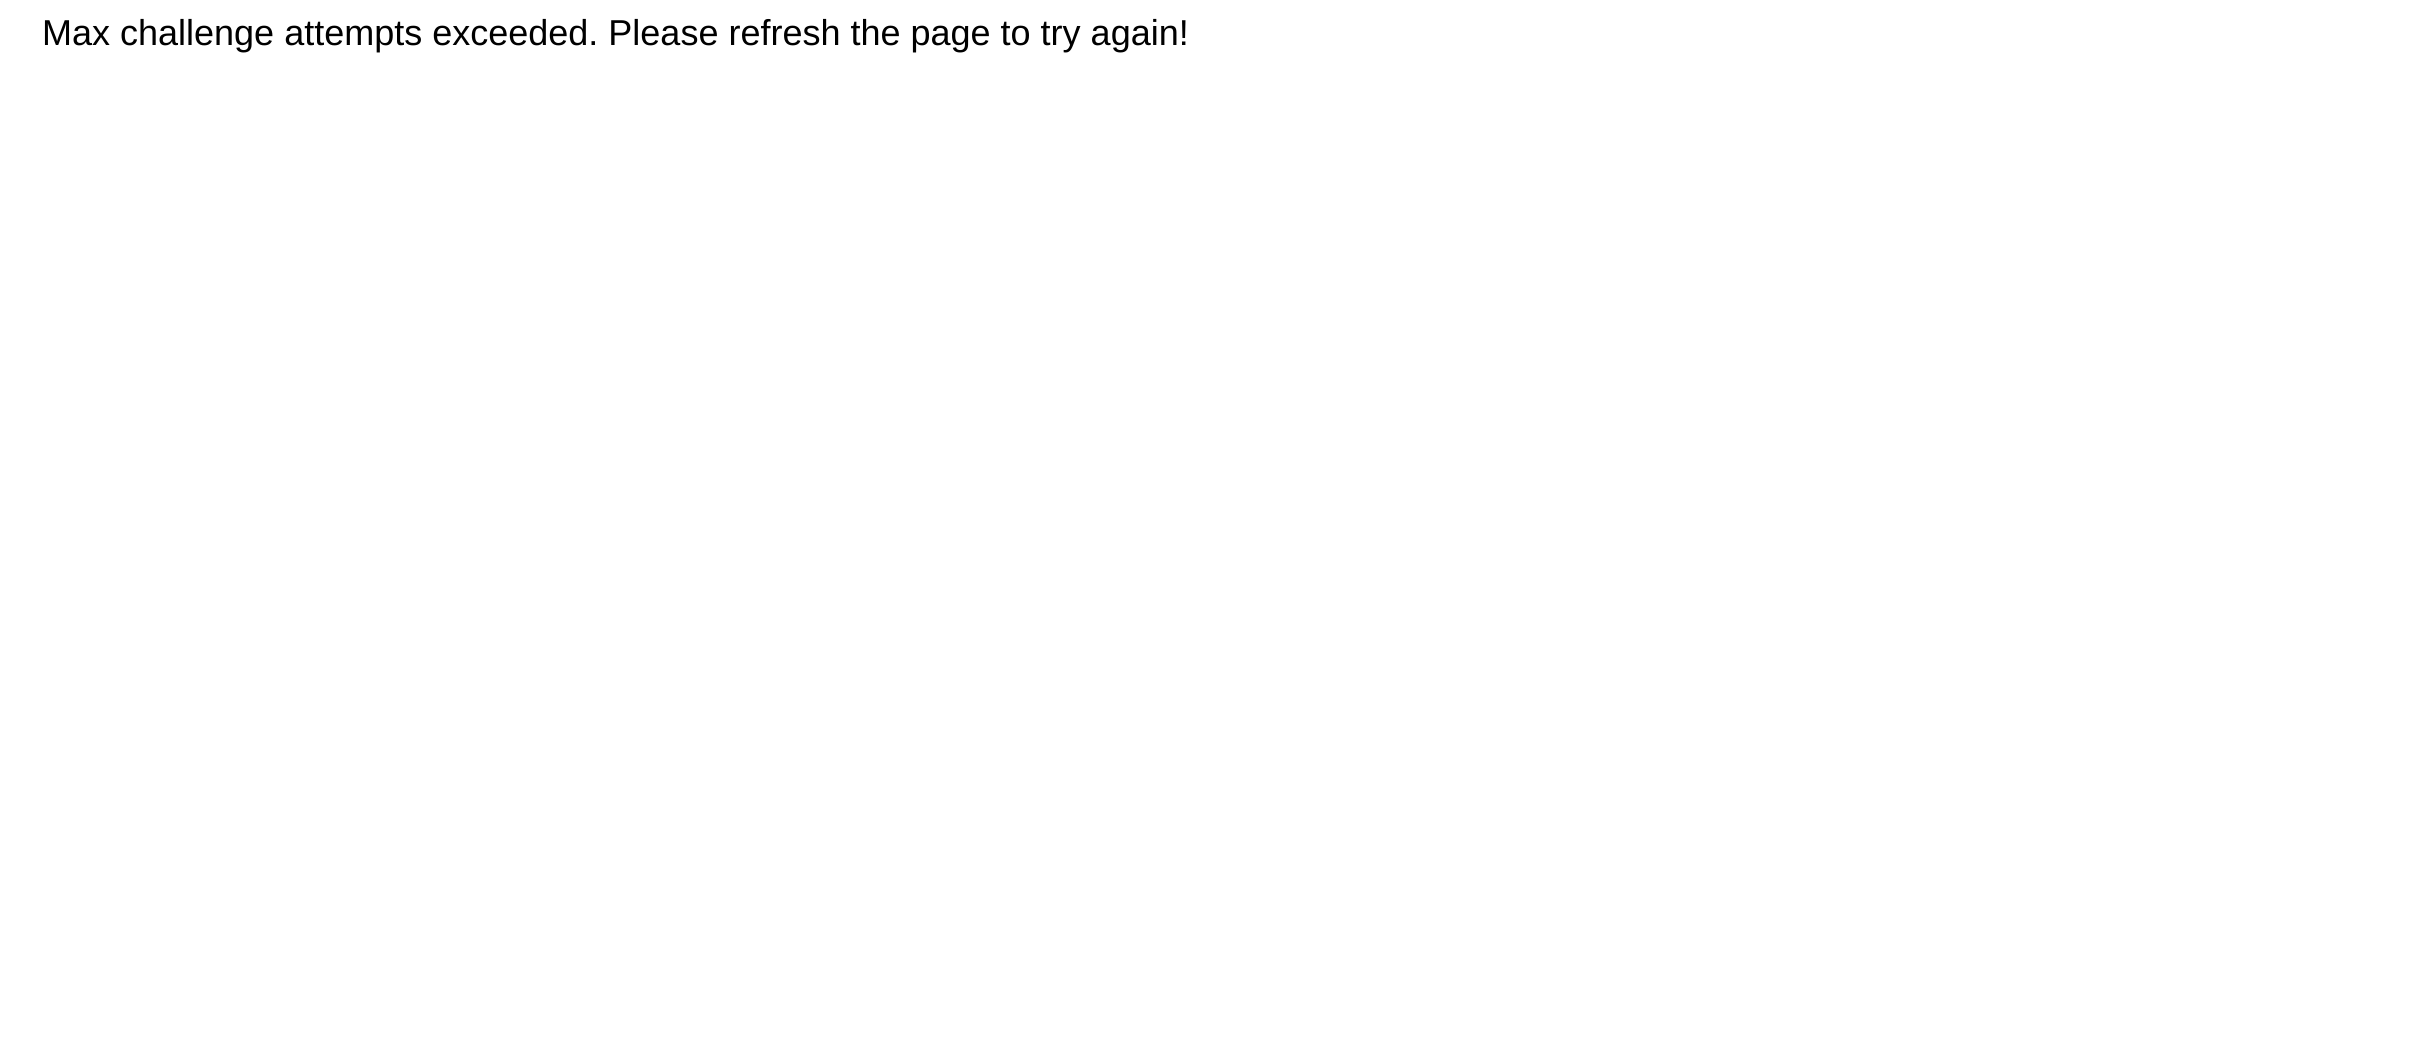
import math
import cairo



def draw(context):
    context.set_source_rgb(1, 1, 1)
    context.paint()
    context.select_font_face("Liberation Sans")
    context.set_font_size(36)
    context.set_source_rgb(0, 0, 0)
    context.move_to(42, 45)
    context.show_text("Max challenge attempts exceeded. Please refresh the page to try again!")


surface = cairo.ImageSurface(cairo.Format.RGB24, 2421, 1050)
context = cairo.Context(surface)
options = cairo.FontOptions()
options.set_hint_metrics(cairo.HintMetrics.OFF)
options.set_hint_style(cairo.HintStyle.NONE)
context.set_font_options(options)
context.set_miter_limit(4)
draw(context)
surface.write_to_png("out.png")
